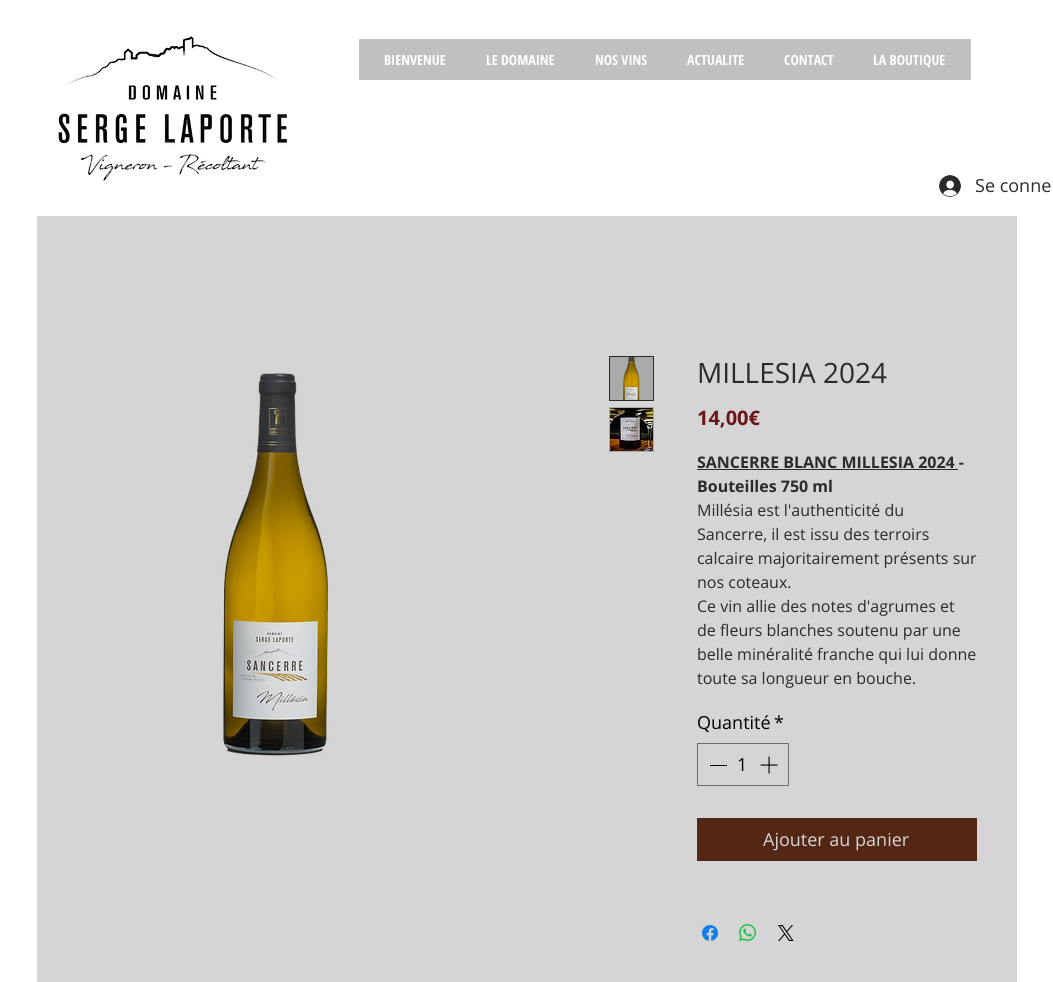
import math
import cairo



def draw_image(context, path, x, y, w, h):
    context.save()
    context.set_source_surface(cairo.ImageSurface.create_from_png(path), x, y)
    context.rectangle(x, y, w, h)
    context.fill()
    context.restore()


def draw(context):
    context.set_source_rgb(1, 1, 1)
    context.paint()
    draw_image(context, "images/1.png", 58, 36, 229, 145)
    context.set_source_rgb(192 / 255, 192 / 255, 192 / 255)
    context.rectangle(359, 39, 612, 41)
    context.fill()
    draw_image(context, "images/2.png", 939, 175, 22, 22)
    context.set_source_rgb(213 / 255, 213 / 255, 213 / 255)
    context.rectangle(37, 216, 980, 766)
    context.fill()
    draw_image(context, "images/3.png", 223, 373, 106, 383)
    context.set_source_rgb(170 / 255, 170 / 255, 170 / 255)
    context.rectangle(609.5, 356.5, 44, 44)
    context.fill_preserve()
    context.set_source_rgb(43 / 255, 43 / 255, 43 / 255)
    context.set_line_width(1)
    context.stroke()
    draw_image(context, "images/4.png", 623, 357, 17, 43)
    context.set_source_rgb(170 / 255, 170 / 255, 170 / 255)
    context.rectangle(609, 407, 45, 45)
    context.fill()
    draw_image(context, "images/5.png", 610, 408, 43, 43)
    context.set_source_rgb(43 / 255, 43 / 255, 43 / 255)
    context.rectangle(697, 469, 261, 1)
    context.fill()
    context.rectangle(697.5, 743.5, 91, 42)
    context.set_source_rgb(111 / 255, 111 / 255, 111 / 255)
    context.stroke()
    context.set_source_rgb(0, 0, 0)
    context.rectangle(710, 765, 17, 1)
    context.fill()
    draw_image(context, "images/6.png", 760, 756, 18, 18)
    context.set_source_rgb(84 / 255, 39 / 255, 21 / 255)
    context.rectangle(697, 818, 280, 43)
    context.fill()
    draw_image(context, "images/7.png", 702, 925, 16, 16)
    draw_image(context, "images/8.png", 739, 924, 17, 17)
    draw_image(context, "images/9.png", 778, 925, 16, 16)
    context.select_font_face("Open Sans Condensed", cairo.FontSlant.NORMAL, cairo.FontWeight.BOLD)
    context.set_font_size(14)
    context.set_source_rgb(1, 1, 1)
    context.move_to(384, 65)
    context.show_text("BIENVENUE")
    context.move_to(486, 65)
    context.show_text("LE DOMAINE")
    context.move_to(595, 65)
    context.show_text("NOS VINS")
    context.move_to(687, 65)
    context.show_text("ACTUALITE")
    context.move_to(784, 65)
    context.show_text("CONTACT")
    context.move_to(873, 65)
    context.show_text("LA BOUTIQUE")
    context.select_font_face("Open Sans")
    context.set_font_size(18)
    context.set_source_rgb(43 / 255, 43 / 255, 43 / 255)
    context.move_to(975, 192)
    context.show_text("Se conne")
    context.set_font_size(28)
    context.move_to(697, 383)
    context.show_text("MILLESIA 2024")
    context.select_font_face("Open Sans", cairo.FontSlant.NORMAL, cairo.FontWeight.BOLD)
    context.set_font_size(20)
    context.set_source_rgb(107 / 255, 21 / 255, 24 / 255)
    context.move_to(697, 425)
    context.show_text("14,00€")
    context.set_font_size(16)
    context.set_source_rgb(43 / 255, 43 / 255, 43 / 255)
    context.move_to(697, 468)
    context.show_text("SANCERRE BLANC MILLESIA 2024 -")
    context.move_to(697, 492)
    context.show_text("Bouteilles 750 ml")
    context.select_font_face("Open Sans")
    context.move_to(697, 516)
    context.show_text("Millésia est l'authenticité du")
    context.move_to(697, 540)
    context.show_text("Sancerre, il est issu des terroirs")
    context.move_to(697, 564)
    context.show_text("calcaire majoritairement présents sur")
    context.move_to(697, 588)
    context.show_text("nos coteaux.")
    context.move_to(697, 612)
    context.show_text("Ce vin allie des notes d'agrumes et")
    context.move_to(697, 636)
    context.show_text("de fleurs blanches soutenu par une")
    context.move_to(697, 660)
    context.show_text("belle minéralité franche qui lui donne")
    context.move_to(697, 684)
    context.show_text("toute sa longueur en bouche.")
    context.set_font_size(18)
    context.set_source_rgb(0, 0, 0)
    context.move_to(697, 729)
    context.show_text("Quantité")
    context.move_to(774, 729)
    context.show_text("*")
    context.move_to(737, 771)
    context.show_text("1")
    context.set_source_rgb(213 / 255, 213 / 255, 213 / 255)
    context.move_to(763, 846)
    context.show_text("Ajouter au panier")


surface = cairo.ImageSurface(cairo.Format.RGB24, 1053, 982)
context = cairo.Context(surface)
options = cairo.FontOptions()
options.set_hint_metrics(cairo.HintMetrics.OFF)
options.set_hint_style(cairo.HintStyle.NONE)
context.set_font_options(options)
context.set_miter_limit(4)
draw(context)
surface.write_to_png("out.png")
